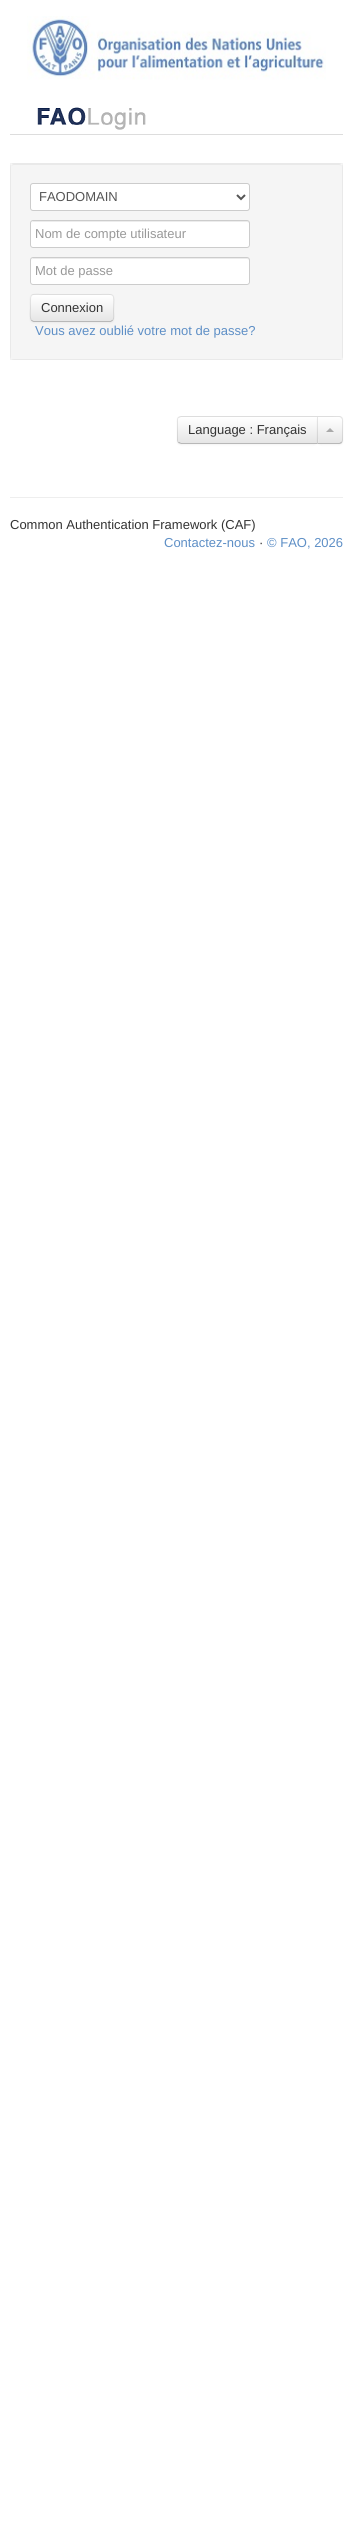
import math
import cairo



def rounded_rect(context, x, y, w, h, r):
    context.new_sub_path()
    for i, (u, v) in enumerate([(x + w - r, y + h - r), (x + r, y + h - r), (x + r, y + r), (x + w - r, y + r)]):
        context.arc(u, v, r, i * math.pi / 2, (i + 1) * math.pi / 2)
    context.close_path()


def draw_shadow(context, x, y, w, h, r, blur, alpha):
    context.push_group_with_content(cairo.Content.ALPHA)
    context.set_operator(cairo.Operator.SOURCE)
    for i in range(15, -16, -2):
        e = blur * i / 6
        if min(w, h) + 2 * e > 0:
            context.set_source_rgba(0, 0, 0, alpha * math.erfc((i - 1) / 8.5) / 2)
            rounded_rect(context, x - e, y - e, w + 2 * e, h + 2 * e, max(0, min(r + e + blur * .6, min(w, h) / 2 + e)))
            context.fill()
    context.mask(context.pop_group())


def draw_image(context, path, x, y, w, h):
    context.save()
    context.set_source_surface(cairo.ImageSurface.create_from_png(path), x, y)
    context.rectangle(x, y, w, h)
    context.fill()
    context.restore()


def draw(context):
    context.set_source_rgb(1, 1, 1)
    context.paint()
    draw_image(context, "images/1.png", 27, 16, 299, 64)
    context.set_source_rgb(221 / 255, 221 / 255, 221 / 255)
    context.rectangle(10, 134, 333, 1)
    context.fill()
    draw_image(context, "images/2.png", 37, 107, 109, 23)
    context.set_source_rgb(245 / 255, 245 / 255, 245 / 255)
    rounded_rect(context, 10, 163, 333, 197, 4)
    context.fill()
    context.set_source_rgb(233 / 255, 233 / 255, 233 / 255)
    context.new_path()
    context.move_to(14, 165)
    context.line_to(339, 165)
    context.curve_to(341, 165, 342, 166, 342, 168)
    context.curve_to(342, 166, 341, 164, 339, 164)
    context.line_to(14, 164)
    context.curve_to(12, 164, 11, 166, 11, 168)
    context.curve_to(11, 166, 12, 165, 14, 165)
    context.close_path()
    context.fill()
    context.rectangle(10.5, 163.5, 332, 196)
    context.set_source_rgba(0, 0, 0, 0.05)
    context.set_line_width(1)
    context.stroke()
    context.set_source_rgb(1, 1, 1)
    rounded_rect(context, 30.5, 183.5, 219, 27, 2.5)
    context.fill_preserve()
    context.set_source_rgb(204 / 255, 204 / 255, 204 / 255)
    context.stroke()
    context.new_path()
    context.move_to(237, 195)
    context.line_to(241, 199)
    context.line_to(245, 195)
    context.set_source_rgb(85 / 255, 85 / 255, 85 / 255)
    context.set_line_width(2)
    context.stroke()
    context.set_source_rgb(1, 1, 1)
    rounded_rect(context, 30, 220, 220, 28, 3)
    context.fill()
    context.set_source_rgb(236 / 255, 236 / 255, 236 / 255)
    context.new_path()
    context.move_to(33, 222)
    context.line_to(247, 222)
    context.curve_to(248, 222, 249, 223, 249, 224)
    context.curve_to(249, 223, 249, 221, 247, 221)
    context.line_to(33, 221)
    context.line_to(32, 222)
    context.line_to(31, 224)
    context.curve_to(31, 223, 32, 222, 33, 222)
    context.close_path()
    context.fill()
    rounded_rect(context, 30.5, 220.5, 219, 27, 2.5)
    context.set_source_rgb(204 / 255, 204 / 255, 204 / 255)
    context.set_line_width(1)
    context.stroke()
    context.set_source_rgb(1, 1, 1)
    rounded_rect(context, 30, 257, 220, 28, 3)
    context.fill()
    context.set_source_rgb(236 / 255, 236 / 255, 236 / 255)
    context.new_path()
    context.move_to(33, 259)
    context.line_to(247, 259)
    context.curve_to(248, 259, 249, 260, 249, 261)
    context.curve_to(249, 260, 249, 258, 247, 258)
    context.line_to(33, 258)
    context.line_to(32, 259)
    context.line_to(31, 261)
    context.curve_to(31, 260, 32, 259, 33, 259)
    context.close_path()
    context.fill()
    rounded_rect(context, 30.5, 257.5, 219, 27, 2.5)
    context.set_source_rgb(204 / 255, 204 / 255, 204 / 255)
    context.stroke()
    context.set_source_rgb(0, 0, 0)
    draw_shadow(context, 30, 295, 84, 28, 4, 1, 0.05)
    context.set_source_rgb(245 / 255, 245 / 255, 245 / 255)
    rounded_rect(context, 30, 294, 84, 28, 4)
    context.fill()
    context.save()
    rounded_rect(context, 30, 294, 84, 28, 4)
    context.clip()
    gradient = cairo.LinearGradient(72, 295, 72, 321)
    gradient.add_color_stop_rgba(0, 1, 1, 1, 1)
    gradient.add_color_stop_rgba(1, 230 / 255, 230 / 255, 230 / 255, 1)
    context.set_source(gradient)
    context.rectangle(30, 295, 84, 26)
    context.fill()
    context.restore()
    context.new_path()
    context.move_to(112.5, 320.5)
    context.line_to(110.5, 321.5)
    context.line_to(33.5, 321.5)
    context.line_to(31.5, 320.5)
    context.set_source_rgba(0, 0, 0, 0.25)
    context.stroke()
    context.new_path()
    context.move_to(31.5, 320.5)
    context.curve_to(29.5, 318, 30.5, 310.5, 30.5, 308)
    context.curve_to(30.5, 291.5, 29, 294.5, 46.5, 294.5)
    context.line_to(97.5, 294.5)
    context.curve_to(117, 294.5, 113.5, 292, 113.5, 311.5)
    context.curve_to(113.5, 314, 114.5, 318.5, 112.5, 320.5)
    context.set_source_rgba(0, 0, 0, 0.1)
    context.stroke()
    context.set_source_rgb(0, 0, 0)
    draw_shadow(context, 177, 417, 141, 28, 4, 1, 0.05)
    context.set_source_rgb(245 / 255, 245 / 255, 245 / 255)
    context.new_path()
    context.move_to(181, 416)
    context.line_to(318, 416)
    context.line_to(318, 444)
    context.line_to(181, 444)
    context.curve_to(179, 444, 177, 442, 177, 440)
    context.line_to(177, 420)
    context.curve_to(177, 418, 179, 416, 181, 416)
    context.close_path()
    context.fill()
    context.save()
    context.new_path()
    context.move_to(181, 416)
    context.line_to(318, 416)
    context.line_to(318, 444)
    context.line_to(181, 444)
    context.curve_to(179, 444, 177, 442, 177, 440)
    context.line_to(177, 420)
    context.curve_to(177, 418, 179, 416, 181, 416)
    context.close_path()
    context.clip()
    gradient = cairo.LinearGradient(248, 417, 248, 443)
    gradient.add_color_stop_rgba(0, 1, 1, 1, 1)
    gradient.add_color_stop_rgba(1, 230 / 255, 230 / 255, 230 / 255, 1)
    context.set_source(gradient)
    context.rectangle(177, 417, 140, 26)
    context.fill()
    context.restore()
    context.set_source_rgba(0, 0, 0, 0.1)
    context.new_path()
    context.move_to(181, 416)
    context.line_to(178, 417)
    context.line_to(179, 418)
    context.line_to(181, 417)
    context.line_to(317, 417)
    context.line_to(318, 416)
    context.close_path()
    context.fill()
    context.set_source_rgba(0, 0, 0, 0.25)
    context.new_path()
    context.move_to(318, 444)
    context.line_to(317, 443)
    context.line_to(181, 443)
    context.line_to(179, 442)
    context.line_to(178, 443)
    context.line_to(181, 444)
    context.close_path()
    context.fill()
    context.set_source_rgba(0, 0, 0, 0.1)
    context.new_path()
    context.move_to(177, 420)
    context.line_to(177, 440)
    context.curve_to(177, 441, 177.5, 442, 178, 443)
    context.line_to(179, 442)
    context.curve_to(178, 442, 178, 441, 178, 440)
    context.line_to(178, 420)
    context.curve_to(178, 419, 178, 418, 179, 418)
    context.line_to(178, 417)
    context.curve_to(177.5, 418, 177, 419, 177, 420)
    context.close_path()
    context.fill()
    context.set_source_rgb(0, 0, 0)
    draw_shadow(context, 317, 417, 26, 28, 4, 1, 0.05)
    context.set_source_rgb(245 / 255, 245 / 255, 245 / 255)
    context.new_path()
    context.move_to(317, 416)
    context.line_to(339, 416)
    context.curve_to(341, 416, 343, 418, 343, 420)
    context.line_to(343, 440)
    context.curve_to(343, 442, 341, 444, 339, 444)
    context.line_to(317, 444)
    context.close_path()
    context.fill()
    context.save()
    context.new_path()
    context.move_to(317, 416)
    context.line_to(339, 416)
    context.curve_to(341, 416, 343, 418, 343, 420)
    context.line_to(343, 440)
    context.curve_to(343, 442, 341, 444, 339, 444)
    context.line_to(317, 444)
    context.close_path()
    context.clip()
    gradient = cairo.LinearGradient(330, 417, 330, 443)
    gradient.add_color_stop_rgba(0, 1, 1, 1, 1)
    gradient.add_color_stop_rgba(1, 230 / 255, 230 / 255, 230 / 255, 1)
    context.set_source(gradient)
    context.rectangle(317, 417, 26, 26)
    context.fill()
    context.restore()
    context.set_source_rgb(1, 1, 1)
    context.new_path()
    context.move_to(318, 418)
    context.line_to(339, 418)
    context.curve_to(341, 418, 342, 419, 342, 421)
    context.curve_to(342, 415, 336.5, 417, 332, 417)
    context.line_to(318, 417)
    context.close_path()
    context.fill()
    context.set_source_rgba(1, 1, 1, 0.12)
    context.rectangle(318, 439, 1, 4)
    context.fill()
    context.set_source_rgba(0, 0, 0, 0.1)
    context.new_path()
    context.move_to(317, 416)
    context.line_to(318, 417)
    context.line_to(339, 417)
    context.curve_to(340, 417, 340.5, 417.5, 341, 418)
    context.line_to(342, 417)
    context.curve_to(341, 416.5, 340, 416, 339, 416)
    context.close_path()
    context.fill()
    context.new_path()
    context.move_to(343, 440)
    context.line_to(343, 420)
    context.curve_to(343, 419, 342.5, 418, 342, 417)
    context.line_to(341, 418)
    context.curve_to(341.5, 418.5, 342, 419, 342, 420)
    context.line_to(342, 440)
    context.curve_to(342, 441, 341.5, 441.5, 341, 442)
    context.line_to(342, 443)
    context.curve_to(342.5, 442, 343, 441, 343, 440)
    context.close_path()
    context.fill()
    context.set_source_rgba(0, 0, 0, 0.25)
    context.new_path()
    context.move_to(339, 444)
    context.curve_to(340, 444, 341, 443.5, 342, 443)
    context.line_to(341, 442)
    context.curve_to(340.5, 442.5, 340, 443, 339, 443)
    context.line_to(318, 443)
    context.line_to(317, 444)
    context.close_path()
    context.fill()
    context.set_source_rgba(0, 0, 0, 0.1)
    context.new_path()
    context.move_to(318, 417)
    context.line_to(317, 416)
    context.line_to(317, 444)
    context.line_to(318, 443)
    context.close_path()
    context.fill()
    context.set_source_rgba(0, 0, 0, 0.3)
    context.new_path()
    context.move_to(334, 432)
    context.line_to(326, 432)
    context.line_to(330, 428)
    context.close_path()
    context.fill()
    context.set_source_rgb(238 / 255, 238 / 255, 238 / 255)
    context.rectangle(10, 497, 333, 1)
    context.fill()
    context.select_font_face("Liberation Sans")
    context.set_font_size(13)
    context.set_source_rgb(85 / 255, 85 / 255, 85 / 255)
    context.move_to(39, 201)
    context.show_text("FAODOMAIN")
    context.set_source_rgb(153 / 255, 153 / 255, 153 / 255)
    context.move_to(35, 238)
    context.show_text("Nom de compte utilisateur")
    context.move_to(35, 275)
    context.show_text("Mot de passe")
    context.set_source_rgb(51 / 255, 51 / 255, 51 / 255)
    context.move_to(41, 312)
    context.show_text("Connexion")
    context.set_source_rgb(94 / 255, 143 / 255, 198 / 255)
    context.move_to(35, 335)
    context.show_text("Vous avez oublié votre mot de passe?")
    context.set_source_rgb(51 / 255, 51 / 255, 51 / 255)
    context.move_to(188, 434)
    context.show_text("Language : Français")
    context.move_to(10, 529)
    context.show_text("Common Authentication Framework (CAF)")
    context.set_source_rgb(94 / 255, 143 / 255, 198 / 255)
    context.move_to(164, 547)
    context.show_text("Contactez-nous")
    context.set_source_rgb(51 / 255, 51 / 255, 51 / 255)
    context.move_to(259, 547)
    context.show_text("·")
    context.set_source_rgb(94 / 255, 143 / 255, 198 / 255)
    context.move_to(267, 547)
    context.show_text("© FAO, 2026")


surface = cairo.ImageSurface(cairo.Format.RGB24, 353, 2526)
context = cairo.Context(surface)
options = cairo.FontOptions()
options.set_hint_metrics(cairo.HintMetrics.OFF)
options.set_hint_style(cairo.HintStyle.NONE)
context.set_font_options(options)
context.set_miter_limit(4)
draw(context)
surface.write_to_png("out.png")
